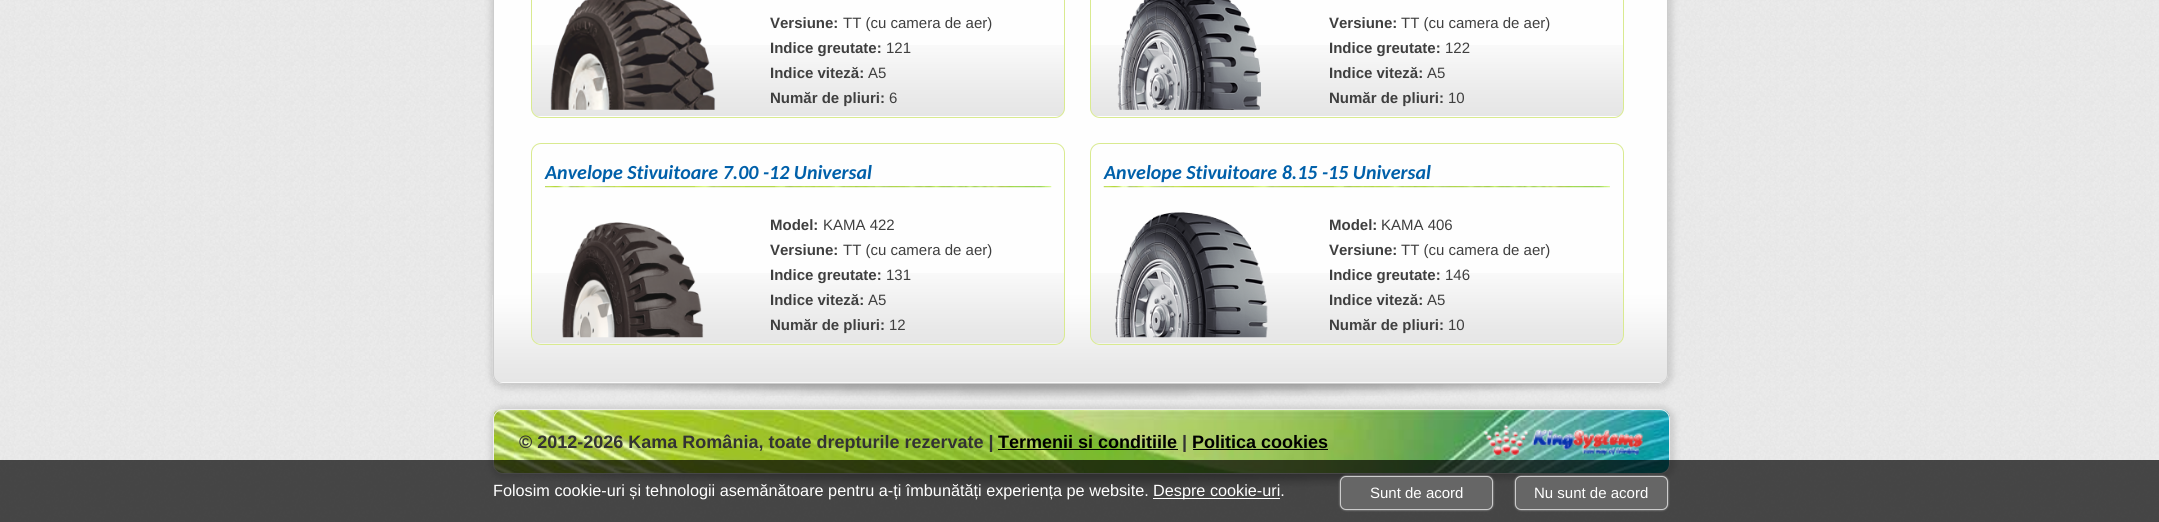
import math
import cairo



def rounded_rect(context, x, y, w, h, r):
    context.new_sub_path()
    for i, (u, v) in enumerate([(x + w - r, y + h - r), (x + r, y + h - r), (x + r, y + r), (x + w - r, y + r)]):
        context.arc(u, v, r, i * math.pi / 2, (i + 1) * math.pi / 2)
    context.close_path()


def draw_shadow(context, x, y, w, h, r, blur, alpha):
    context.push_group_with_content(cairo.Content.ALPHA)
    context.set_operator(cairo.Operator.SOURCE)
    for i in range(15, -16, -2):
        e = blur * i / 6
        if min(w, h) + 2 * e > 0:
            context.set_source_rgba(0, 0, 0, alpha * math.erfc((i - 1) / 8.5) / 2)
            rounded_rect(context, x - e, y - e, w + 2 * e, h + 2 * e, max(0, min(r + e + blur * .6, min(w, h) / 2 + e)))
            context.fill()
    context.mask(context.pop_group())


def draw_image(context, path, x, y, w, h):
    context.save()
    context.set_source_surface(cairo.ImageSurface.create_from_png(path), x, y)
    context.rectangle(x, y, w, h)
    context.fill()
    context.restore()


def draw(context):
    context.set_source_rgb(1, 1, 1)
    context.paint()
    draw_image(context, "images/1.png", 0, 0, 2159, 522)
    draw_image(context, "images/13.png", 493, 383, 1155, 17)
    context.set_source_rgb(100 / 255, 100 / 255, 100 / 255)
    draw_shadow(context, 490, -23, 1183, 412, 14, 3, 0.2)
    context.set_source_rgb(254 / 255, 254 / 255, 254 / 255)
    rounded_rect(context, 493, -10, 1175, 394, 10)
    context.fill()
    draw_image(context, "images/2.png", 492, 295, 1176, 88)
    rounded_rect(context, 493.5, -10.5, 1174, 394, 9.5)
    context.set_source_rgb(204 / 255, 204 / 255, 204 / 255)
    context.set_line_width(1)
    context.stroke()
    draw_image(context, "images/3.png", 531, 45, 534, 71)
    rounded_rect(context, 531.5, -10.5, 533, 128, 9.5)
    context.set_source_rgb(217 / 255, 234 / 255, 144 / 255)
    context.stroke()
    draw_image(context, "images/4.png", 550, 0, 166, 110)
    draw_image(context, "images/5.png", 1090, 45, 534, 71)
    rounded_rect(context, 1090.5, -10.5, 533, 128, 9.5)
    context.stroke()
    draw_image(context, "images/6.png", 1117, 0, 144, 110)
    context.set_source_rgb(254 / 255, 254 / 255, 254 / 255)
    rounded_rect(context, 531, 143, 534, 202, 10)
    context.fill()
    draw_image(context, "images/7.png", 531, 273, 534, 71)
    rounded_rect(context, 531.5, 143.5, 533, 201, 9.5)
    context.set_source_rgb(217 / 255, 234 / 255, 144 / 255)
    context.stroke()
    draw_image(context, "images/8.png", 545, 186, 507, 2)
    draw_image(context, "images/9.png", 562, 222, 142, 116)
    context.set_source_rgb(254 / 255, 254 / 255, 254 / 255)
    rounded_rect(context, 1090, 143, 534, 202, 10)
    context.fill()
    draw_image(context, "images/10.png", 1090, 273, 534, 71)
    rounded_rect(context, 1090.5, 143.5, 533, 201, 9.5)
    context.set_source_rgb(217 / 255, 234 / 255, 144 / 255)
    context.stroke()
    draw_image(context, "images/11.png", 1103, 186, 507, 2)
    draw_image(context, "images/12.png", 1115, 212, 153, 126)
    draw_image(context, "images/16.png", 501, 473, 1147, 17)
    context.set_source_rgb(100 / 255, 100 / 255, 100 / 255)
    draw_shadow(context, 490, 406, 1185, 73, 14, 3, 0.2)
    draw_image(context, "images/14.png", 493, 409, 1177, 65)
    rounded_rect(context, 493.5, 409.5, 1176, 64, 9.5)
    context.set_source_rgb(238 / 255, 238 / 255, 238 / 255)
    context.stroke()
    context.set_source_rgb(0, 0, 0)
    context.rectangle(998, 449, 180, 1)
    context.fill()
    context.rectangle(1193, 449, 135, 1)
    context.fill()
    draw_image(context, "images/15.png", 1483, 424, 161, 31)
    context.set_source_rgba(0, 0, 0, 0.7)
    context.rectangle(0, 460, 2159, 62)
    context.fill()
    context.set_source_rgb(1, 1, 1)
    context.rectangle(1153, 498, 127, 1)
    context.fill()
    context.set_source_rgb(170 / 255, 170 / 255, 170 / 255)
    draw_shadow(context, 1340, 476, 153, 34, 6, 1, 1)
    context.set_source_rgb(102 / 255, 102 / 255, 102 / 255)
    rounded_rect(context, 1340.5, 476.5, 152, 33, 5.5)
    context.fill_preserve()
    context.set_source_rgb(204 / 255, 204 / 255, 204 / 255)
    context.stroke()
    context.set_source_rgb(170 / 255, 170 / 255, 170 / 255)
    draw_shadow(context, 1515, 476, 153, 34, 6, 1, 1)
    context.set_source_rgb(102 / 255, 102 / 255, 102 / 255)
    rounded_rect(context, 1515.5, 476.5, 152, 33, 5.5)
    context.fill_preserve()
    context.set_source_rgb(204 / 255, 204 / 255, 204 / 255)
    context.stroke()
    context.select_font_face("Liberation Sans", cairo.FontSlant.NORMAL, cairo.FontWeight.BOLD)
    context.set_font_size(15)
    context.set_source_rgb(63 / 255, 63 / 255, 63 / 255)
    context.move_to(770, 28)
    context.show_text("Versiune:")
    context.select_font_face("Liberation Sans")
    context.move_to(843, 28)
    context.show_text("TT (cu camera de aer)")
    context.select_font_face("Liberation Sans", cairo.FontSlant.NORMAL, cairo.FontWeight.BOLD)
    context.move_to(770, 53)
    context.show_text("Indice greutate:")
    context.select_font_face("Liberation Sans")
    context.move_to(886, 53)
    context.show_text("121")
    context.select_font_face("Liberation Sans", cairo.FontSlant.NORMAL, cairo.FontWeight.BOLD)
    context.move_to(770, 78)
    context.show_text("Indice viteză:")
    context.select_font_face("Liberation Sans")
    context.move_to(868, 78)
    context.show_text("A5")
    context.select_font_face("Liberation Sans", cairo.FontSlant.NORMAL, cairo.FontWeight.BOLD)
    context.move_to(770, 103)
    context.show_text("Număr de pliuri:")
    context.select_font_face("Liberation Sans")
    context.move_to(889, 103)
    context.show_text("6")
    context.select_font_face("Liberation Sans", cairo.FontSlant.NORMAL, cairo.FontWeight.BOLD)
    context.move_to(1329, 28)
    context.show_text("Versiune:")
    context.select_font_face("Liberation Sans")
    context.move_to(1401, 28)
    context.show_text("TT (cu camera de aer)")
    context.select_font_face("Liberation Sans", cairo.FontSlant.NORMAL, cairo.FontWeight.BOLD)
    context.move_to(1329, 53)
    context.show_text("Indice greutate:")
    context.select_font_face("Liberation Sans")
    context.move_to(1445, 53)
    context.show_text("122")
    context.select_font_face("Liberation Sans", cairo.FontSlant.NORMAL, cairo.FontWeight.BOLD)
    context.move_to(1329, 78)
    context.show_text("Indice viteză:")
    context.select_font_face("Liberation Sans")
    context.move_to(1427, 78)
    context.show_text("A5")
    context.select_font_face("Liberation Sans", cairo.FontSlant.NORMAL, cairo.FontWeight.BOLD)
    context.move_to(1329, 103)
    context.show_text("Număr de pliuri:")
    context.select_font_face("Liberation Sans")
    context.move_to(1448, 103)
    context.show_text("10")
    context.select_font_face("Carlito", cairo.FontSlant.ITALIC, cairo.FontWeight.BOLD)
    context.set_font_size(20)
    context.set_source_rgb(0, 96 / 255, 170 / 255)
    context.move_to(545, 179)
    context.show_text("Anvelope Stivuitoare 7.00 -12 Universal")
    context.select_font_face("Liberation Sans", cairo.FontSlant.NORMAL, cairo.FontWeight.BOLD)
    context.set_font_size(15)
    context.set_source_rgb(63 / 255, 63 / 255, 63 / 255)
    context.move_to(770, 230)
    context.show_text("Model:")
    context.select_font_face("Liberation Sans")
    context.move_to(823, 230)
    context.show_text("KAMA 422")
    context.select_font_face("Liberation Sans", cairo.FontSlant.NORMAL, cairo.FontWeight.BOLD)
    context.move_to(770, 255)
    context.show_text("Versiune:")
    context.select_font_face("Liberation Sans")
    context.move_to(843, 255)
    context.show_text("TT (cu camera de aer)")
    context.select_font_face("Liberation Sans", cairo.FontSlant.NORMAL, cairo.FontWeight.BOLD)
    context.move_to(770, 280)
    context.show_text("Indice greutate:")
    context.select_font_face("Liberation Sans")
    context.move_to(886, 280)
    context.show_text("131")
    context.select_font_face("Liberation Sans", cairo.FontSlant.NORMAL, cairo.FontWeight.BOLD)
    context.move_to(770, 305)
    context.show_text("Indice viteză:")
    context.select_font_face("Liberation Sans")
    context.move_to(868, 305)
    context.show_text("A5")
    context.select_font_face("Liberation Sans", cairo.FontSlant.NORMAL, cairo.FontWeight.BOLD)
    context.move_to(770, 330)
    context.show_text("Număr de pliuri:")
    context.select_font_face("Liberation Sans")
    context.move_to(889, 330)
    context.show_text("12")
    context.select_font_face("Carlito", cairo.FontSlant.ITALIC, cairo.FontWeight.BOLD)
    context.set_font_size(20)
    context.set_source_rgb(0, 96 / 255, 170 / 255)
    context.move_to(1104, 179)
    context.show_text("Anvelope Stivuitoare 8.15 -15 Universal")
    context.select_font_face("Liberation Sans", cairo.FontSlant.NORMAL, cairo.FontWeight.BOLD)
    context.set_font_size(15)
    context.set_source_rgb(63 / 255, 63 / 255, 63 / 255)
    context.move_to(1329, 230)
    context.show_text("Model:")
    context.select_font_face("Liberation Sans")
    context.move_to(1381, 230)
    context.show_text("KAMA 406")
    context.select_font_face("Liberation Sans", cairo.FontSlant.NORMAL, cairo.FontWeight.BOLD)
    context.move_to(1329, 255)
    context.show_text("Versiune:")
    context.select_font_face("Liberation Sans")
    context.move_to(1401, 255)
    context.show_text("TT (cu camera de aer)")
    context.select_font_face("Liberation Sans", cairo.FontSlant.NORMAL, cairo.FontWeight.BOLD)
    context.move_to(1329, 280)
    context.show_text("Indice greutate:")
    context.select_font_face("Liberation Sans")
    context.move_to(1445, 280)
    context.show_text("146")
    context.select_font_face("Liberation Sans", cairo.FontSlant.NORMAL, cairo.FontWeight.BOLD)
    context.move_to(1329, 305)
    context.show_text("Indice viteză:")
    context.select_font_face("Liberation Sans")
    context.move_to(1427, 305)
    context.show_text("A5")
    context.select_font_face("Liberation Sans", cairo.FontSlant.NORMAL, cairo.FontWeight.BOLD)
    context.move_to(1329, 330)
    context.show_text("Număr de pliuri:")
    context.select_font_face("Liberation Sans")
    context.move_to(1448, 330)
    context.show_text("10")
    context.select_font_face("Liberation Sans", cairo.FontSlant.NORMAL, cairo.FontWeight.BOLD)
    context.set_font_size(18)
    context.set_source_rgb(51 / 255, 51 / 255, 51 / 255)
    context.move_to(519, 448)
    context.show_text("© 2012-2026 Kama România, toate drepturile rezervate |")
    context.set_source_rgb(0, 0, 0)
    context.move_to(998, 448)
    context.show_text("Termenii si conditiile")
    context.set_source_rgb(51 / 255, 51 / 255, 51 / 255)
    context.move_to(1182, 448)
    context.show_text("|")
    context.set_source_rgb(0, 0, 0)
    context.move_to(1192, 448)
    context.show_text("Politica cookies")
    context.select_font_face("Liberation Sans")
    context.set_font_size(16.25)
    context.set_source_rgb(1, 1, 1)
    context.move_to(493, 496)
    context.show_text("Folosim cookie-uri și tehnologii asemănătoare pentru a-ți îmbunătăți experiența pe website.")
    context.move_to(1153, 496)
    context.show_text("Despre cookie-uri.")
    context.set_font_size(15)
    context.move_to(1370, 498)
    context.show_text("Sunt de acord")
    context.move_to(1534, 498)
    context.show_text("Nu sunt de acord")


surface = cairo.ImageSurface(cairo.Format.RGB24, 2159, 522)
context = cairo.Context(surface)
options = cairo.FontOptions()
options.set_hint_metrics(cairo.HintMetrics.OFF)
options.set_hint_style(cairo.HintStyle.NONE)
context.set_font_options(options)
context.set_miter_limit(4)
draw(context)
surface.write_to_png("out.png")
